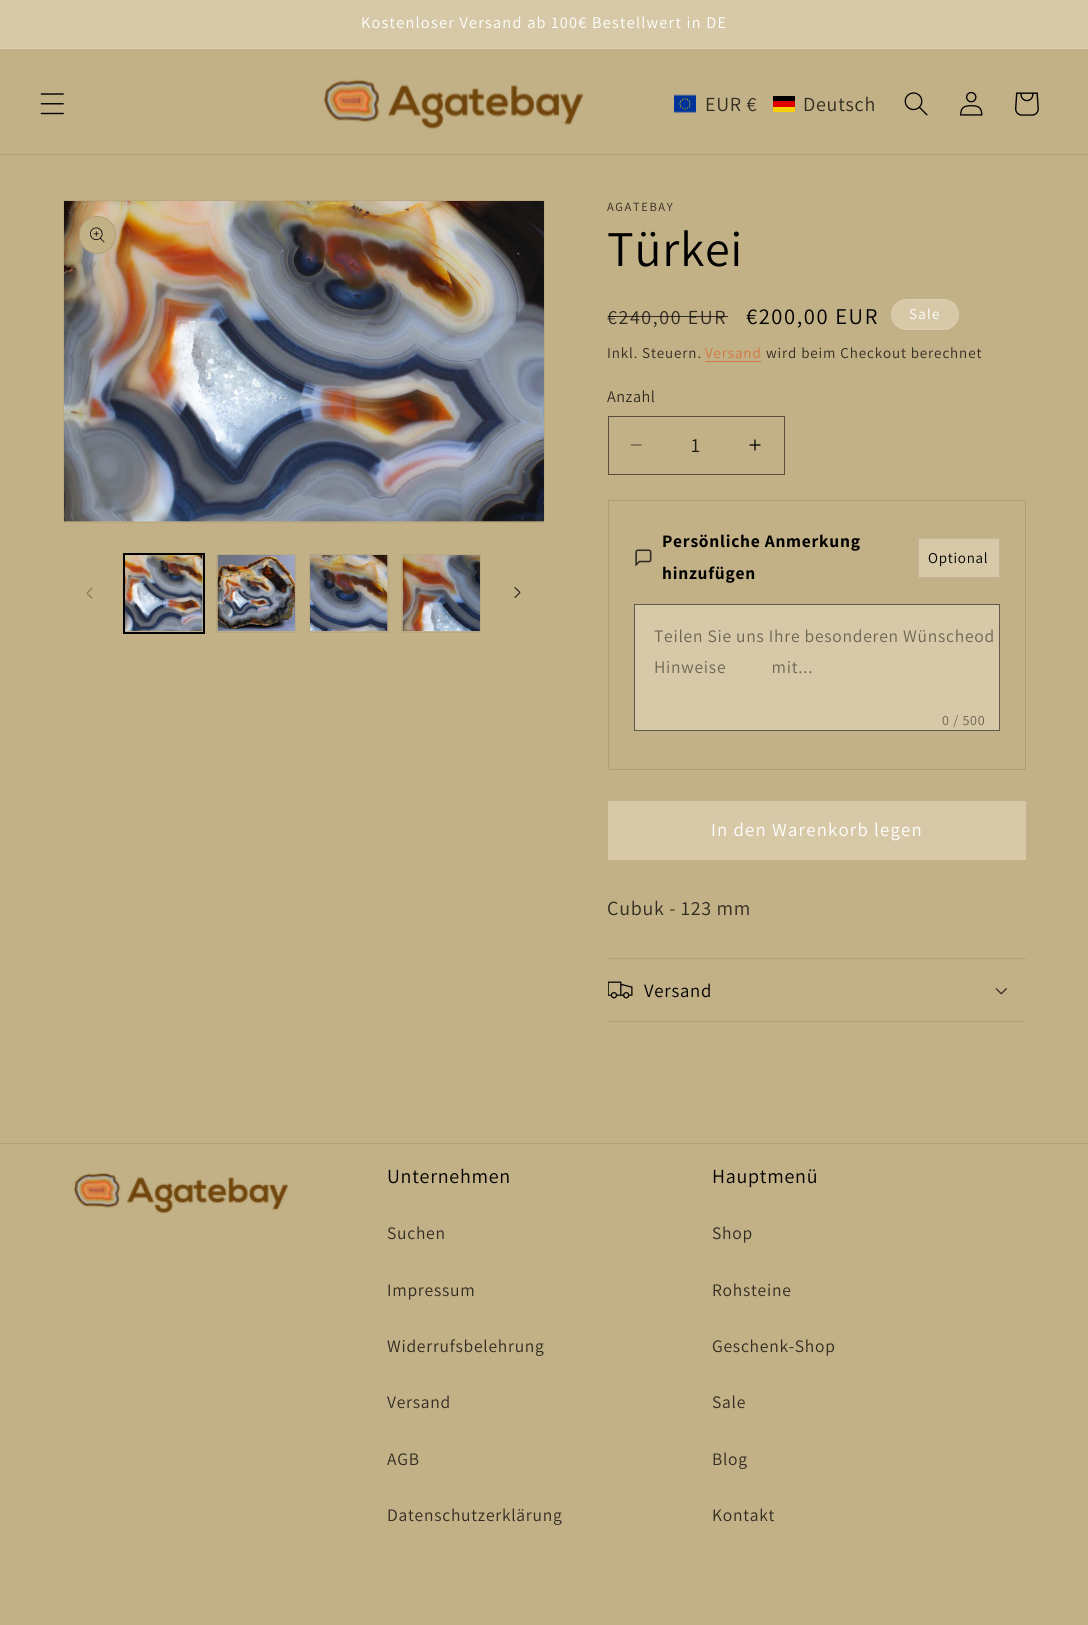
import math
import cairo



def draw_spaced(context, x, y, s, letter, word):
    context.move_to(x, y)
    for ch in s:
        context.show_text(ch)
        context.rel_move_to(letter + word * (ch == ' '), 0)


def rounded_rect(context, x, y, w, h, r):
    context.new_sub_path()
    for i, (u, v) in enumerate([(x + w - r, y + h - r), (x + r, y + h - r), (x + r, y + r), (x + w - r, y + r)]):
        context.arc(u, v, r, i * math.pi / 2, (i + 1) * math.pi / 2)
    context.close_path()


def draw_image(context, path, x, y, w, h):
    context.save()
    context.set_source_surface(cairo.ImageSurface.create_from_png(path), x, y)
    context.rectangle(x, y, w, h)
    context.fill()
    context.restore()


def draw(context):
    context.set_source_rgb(194 / 255, 176 / 255, 134 / 255)
    context.paint()
    context.set_source_rgb(215 / 255, 201 / 255, 168 / 255)
    context.rectangle(0, 0, 1088, 48)
    context.fill()
    context.set_source_rgb(218 / 255, 205 / 255, 175 / 255)
    context.rectangle(0, 48, 1088, 1)
    context.fill()
    context.set_source_rgb(178 / 255, 162 / 255, 123 / 255)
    context.rectangle(0, 154, 1088, 1)
    context.fill()
    draw_image(context, "images/1.png", 40, 93, 24, 22)
    draw_image(context, "images/2.png", 323, 79, 261, 51)
    draw_image(context, "images/3.png", 674, 94, 22, 19)
    context.set_source_rgb(1, 206 / 255, 0)
    context.rectangle(773, 107, 22, 5)
    context.fill()
    context.set_source_rgb(0, 0, 0)
    context.rectangle(773, 96, 22, 5)
    context.fill()
    context.set_source_rgb(221 / 255, 0, 0)
    context.rectangle(773, 101, 22, 6)
    context.fill()
    draw_image(context, "images/4.png", 904, 92, 24, 24)
    draw_image(context, "images/5.png", 960, 91, 23, 25)
    draw_image(context, "images/6.png", 1015, 92, 24, 24)
    context.rectangle(63.5, 200.5, 481, 322)
    context.set_source_rgb(184 / 255, 167 / 255, 127 / 255)
    context.set_line_width(1)
    context.stroke()
    draw_image(context, "images/7.png", 64, 201, 480, 321)
    context.set_source_rgb(194 / 255, 176 / 255, 134 / 255)
    rounded_rect(context, 79, 216, 37, 38, 18.5)
    context.fill()
    rounded_rect(context, 79.5, 216.5, 36, 37, 18)
    context.set_source_rgba(0, 0, 0, 0.1)
    context.stroke()
    draw_image(context, "images/8.png", 90, 227, 15, 16)
    draw_image(context, "images/9.png", 86, 587, 7, 12)
    context.rectangle(123.5, 553.5, 81, 80)
    context.set_source_rgb(0, 0, 0)
    context.stroke()
    context.rectangle(124.5, 554.5, 79, 78)
    context.stroke()
    draw_image(context, "images/10.png", 125, 555, 78, 77)
    context.rectangle(216.5, 554.5, 79, 78)
    context.set_source_rgb(184 / 255, 167 / 255, 127 / 255)
    context.stroke()
    draw_image(context, "images/11.png", 217, 555, 78, 77)
    context.rectangle(309.5, 554.5, 79, 78)
    context.stroke()
    draw_image(context, "images/12.png", 310, 555, 78, 77)
    context.rectangle(401.5, 554.5, 79, 78)
    context.stroke()
    draw_image(context, "images/13.png", 402, 555, 78, 77)
    draw_image(context, "images/14.png", 514, 587, 7, 12)
    context.set_source_rgb(215 / 255, 201 / 255, 168 / 255)
    rounded_rect(context, 891, 299, 68, 31, 15.5)
    context.fill()
    rounded_rect(context, 891.5, 299.5, 67, 30, 15)
    context.set_source_rgba(1, 1, 1, 0.1)
    context.stroke()
    context.set_source_rgb(210 / 255, 119 / 255, 64 / 255)
    context.rectangle(705, 361, 56, 1)
    context.fill()
    draw_image(context, "images/15.png", 630, 444, 12, 2)
    draw_image(context, "images/16.png", 749, 439, 12, 12)
    context.rectangle(608.5, 416.5, 176, 58)
    context.set_source_rgb(87 / 255, 79 / 255, 60 / 255)
    context.stroke()
    context.rectangle(608.5, 500.5, 417, 269)
    context.set_source_rgb(175 / 255, 158 / 255, 121 / 255)
    context.stroke()
    draw_image(context, "images/17.png", 635, 549, 17, 18)
    context.set_source_rgb(215 / 255, 201 / 255, 168 / 255)
    context.rectangle(918.5, 538.5, 81, 39)
    context.fill_preserve()
    context.set_source_rgb(194 / 255, 181 / 255, 151 / 255)
    context.stroke()
    context.set_source_rgb(215 / 255, 201 / 255, 168 / 255)
    context.rectangle(634.5, 604.5, 365, 126)
    context.fill_preserve()
    context.set_source_rgb(97 / 255, 90 / 255, 76 / 255)
    context.stroke()
    context.set_source_rgb(215 / 255, 201 / 255, 168 / 255)
    context.rectangle(608, 801, 418, 59)
    context.fill()
    context.set_source_rgb(178 / 255, 162 / 255, 123 / 255)
    context.rectangle(608, 958, 418, 1)
    context.fill()
    context.rectangle(608, 1021, 418, 1)
    context.fill()
    draw_image(context, "images/18.png", 608, 981, 25, 18)
    draw_image(context, "images/19.png", 995, 988, 12, 7)
    context.rectangle(0, 1143, 1088, 1)
    context.fill()
    draw_image(context, "images/20.png", 73, 1173, 216, 41)
    context.select_font_face("Assistant")
    context.set_font_size(16.25)
    context.set_source_rgb(1, 1, 1)
    draw_spaced(context, 361, 28, "Kostenloser Versand ab 100€ Bestellwert in DE", 1.25, 0)
    context.set_font_size(20)
    context.set_source_rgb(49 / 255, 44 / 255, 34 / 255)
    draw_spaced(context, 705, 111, "EUR €", 0.75, 0)
    draw_spaced(context, 803, 111, "Deutsch", 0.75, 0)
    context.set_font_size(12.5)
    draw_spaced(context, 607, 211, "AGATEBAY", 1.6, 0)
    context.set_font_size(50)
    context.set_source_rgb(0, 0, 0)
    draw_spaced(context, 607, 266, "Türkei", 0.75, 0)
    context.set_font_size(20)
    context.set_source_rgb(49 / 255, 44 / 255, 34 / 255)
    draw_spaced(context, 607, 324, "€240,00 EUR", 1.6, 0)
    context.set_source_rgba(0, 0, 0, 0.75)
    context.rectangle(608, 316, 120, 1)
    context.fill()
    context.set_font_size(22.5)
    context.set_source_rgb(0, 0, 0)
    draw_spaced(context, 746, 324, "€200,00 EUR", 1.6, 0)
    context.set_font_size(15)
    context.set_source_rgb(1, 1, 1)
    draw_spaced(context, 909, 319, "Sale", 1.25, 0)
    context.set_source_rgb(49 / 255, 44 / 255, 34 / 255)
    draw_spaced(context, 607, 358, "Inkl. Steuern.", 0.9, 0)
    context.set_source_rgb(210 / 255, 119 / 255, 64 / 255)
    draw_spaced(context, 705, 358, "Versand", 0.9, 0)
    context.set_source_rgb(49 / 255, 44 / 255, 34 / 255)
    draw_spaced(context, 766, 358, "wird beim Checkout berechnet", 0.9, 0)
    context.set_font_size(16.25)
    draw_spaced(context, 607, 402, "Anzahl", 0.5, 0)
    context.set_font_size(20)
    context.set_source_rgb(29 / 255, 26 / 255, 20 / 255)
    context.move_to(691, 452)
    context.show_text("1")
    context.select_font_face("Assistant", cairo.FontSlant.NORMAL, cairo.FontWeight.BOLD)
    context.set_font_size(17.5)
    context.set_source_rgb(0, 0, 0)
    draw_spaced(context, 662, 547, "Persönliche Anmerkung", 0.75, 0)
    draw_spaced(context, 662, 579, "hinzufügen", 0.75, 0)
    context.select_font_face("Assistant")
    context.set_font_size(15)
    draw_spaced(context, 928, 563, "Optional", 0.75, 0)
    context.set_font_size(17.5)
    context.set_source_rgb(108 / 255, 101 / 255, 84 / 255)
    draw_spaced(context, 654, 642, "Teilen Sie uns Ihre besonderen Wünscheod", 0.75, 0)
    draw_spaced(context, 654, 673, "Hinweise mit...", 0.75, 41)
    context.set_font_size(14)
    draw_spaced(context, 942, 725, "0 / 500", 0.75, 0)
    context.set_font_size(18.75)
    context.set_source_rgb(1, 1, 1)
    draw_spaced(context, 711, 836, "In den Warenkorb legen", 1.25, 0)
    context.set_font_size(20)
    context.set_source_rgb(49 / 255, 44 / 255, 34 / 255)
    draw_spaced(context, 607, 915, "Cubuk - 123 mm", 0.75, 0)
    context.set_font_size(18.75)
    context.set_source_rgb(0, 0, 0)
    draw_spaced(context, 644, 997, "Versand", 0.75, 0)
    context.set_font_size(20)
    draw_spaced(context, 387, 1183, "Unternehmen", 0.75, 0)
    context.set_font_size(17.5)
    context.set_source_rgb(49 / 255, 44 / 255, 34 / 255)
    draw_spaced(context, 387, 1239, "Suchen", 0.75, 0)
    draw_spaced(context, 387, 1296, "Impressum", 0.75, 0)
    draw_spaced(context, 387, 1352, "Widerrufsbelehrung", 0.75, 0)
    draw_spaced(context, 387, 1408, "Versand", 0.75, 0)
    draw_spaced(context, 387, 1465, "AGB", 0.75, 0)
    draw_spaced(context, 387, 1521, "Datenschutzerklärung", 0.75, 0)
    context.set_font_size(20)
    context.set_source_rgb(0, 0, 0)
    draw_spaced(context, 712, 1183, "Hauptmenü", 0.75, 0)
    context.set_font_size(17.5)
    context.set_source_rgb(49 / 255, 44 / 255, 34 / 255)
    draw_spaced(context, 712, 1239, "Shop", 0.75, 0)
    draw_spaced(context, 712, 1296, "Rohsteine", 0.75, 0)
    draw_spaced(context, 712, 1352, "Geschenk-Shop", 0.75, 0)
    draw_spaced(context, 712, 1408, "Sale", 0.75, 0)
    draw_spaced(context, 712, 1465, "Blog", 0.75, 0)
    draw_spaced(context, 712, 1521, "Kontakt", 0.75, 0)


surface = cairo.ImageSurface(cairo.Format.RGB24, 1088, 1625)
context = cairo.Context(surface)
options = cairo.FontOptions()
options.set_hint_metrics(cairo.HintMetrics.OFF)
options.set_hint_style(cairo.HintStyle.NONE)
context.set_font_options(options)
context.set_miter_limit(4)
draw(context)
surface.write_to_png("out.png")
